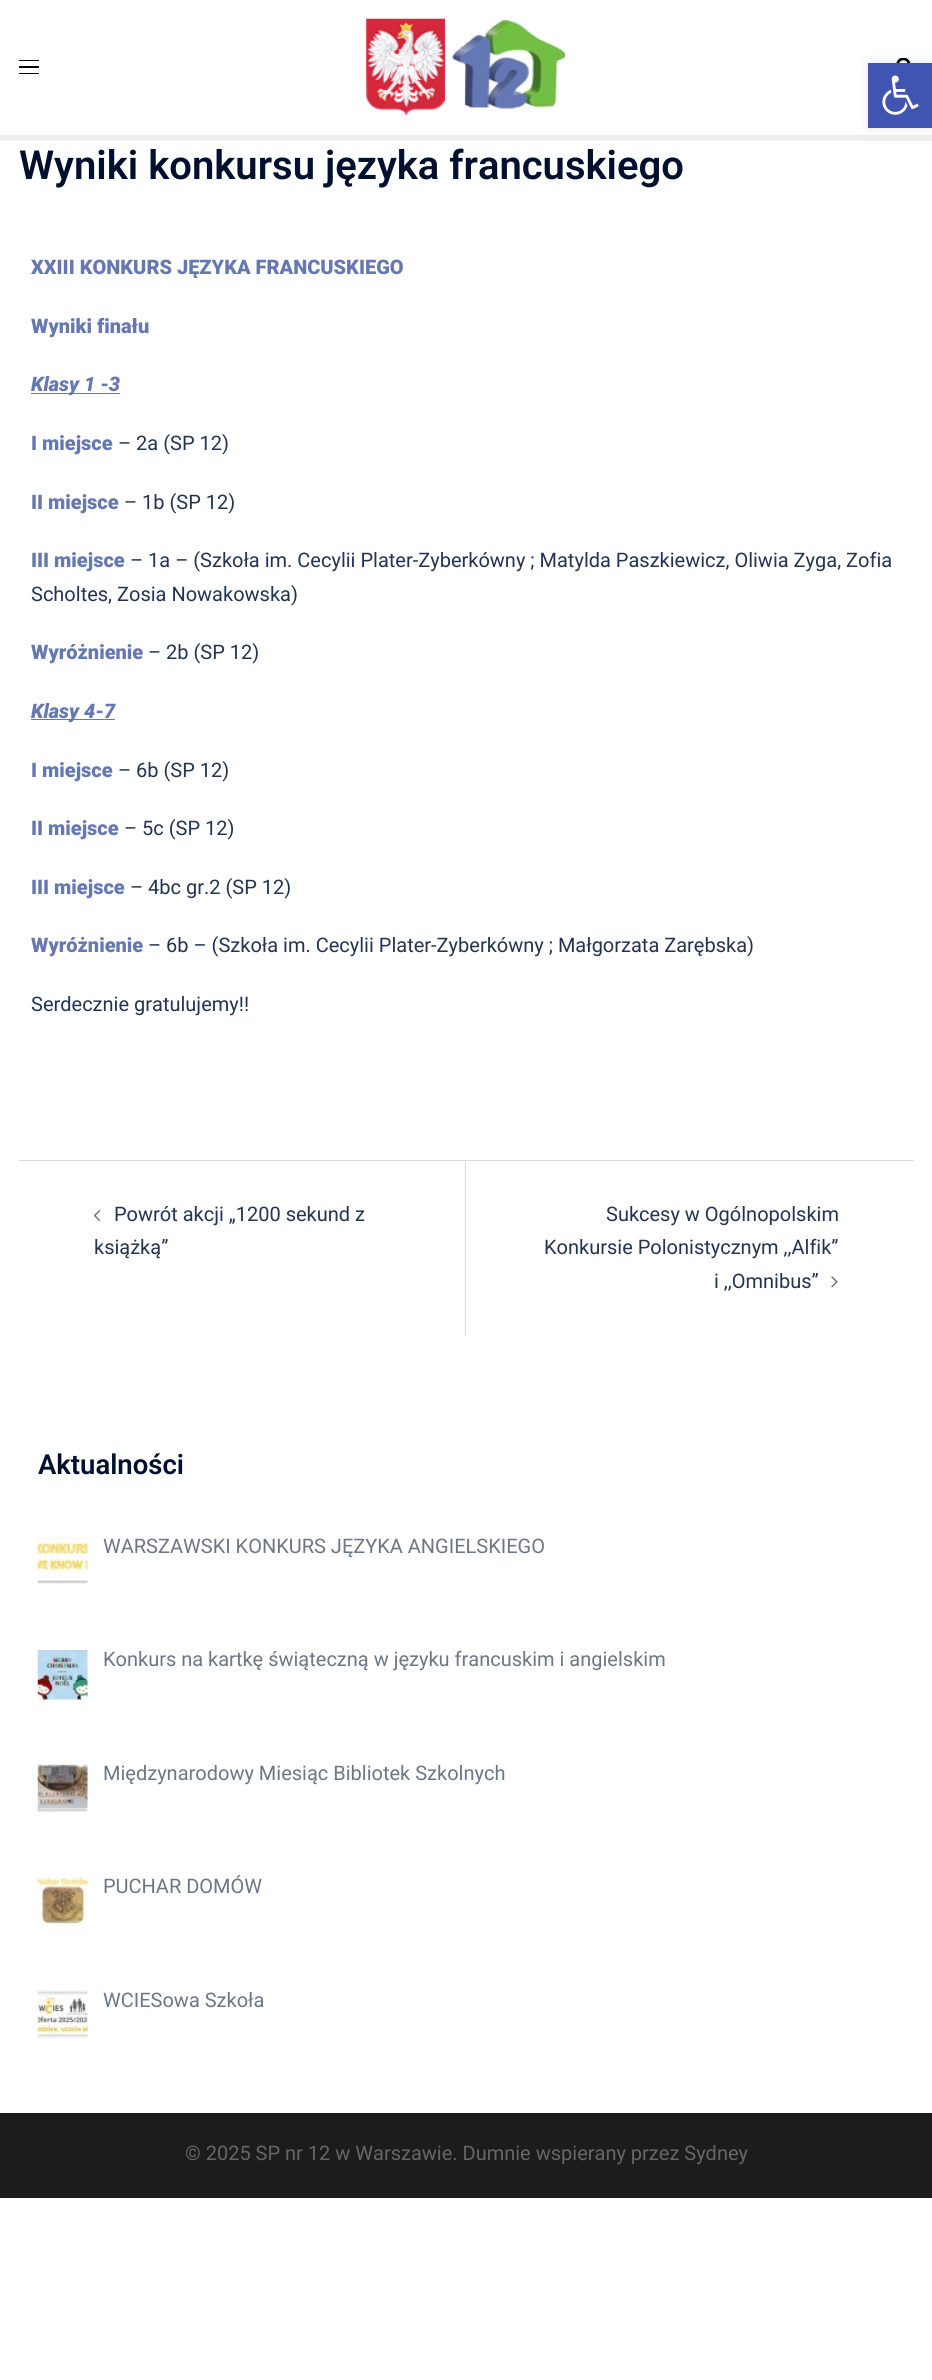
import math
import cairo



def rounded_rect(context, x, y, w, h, r):
    context.new_sub_path()
    for i, (u, v) in enumerate([(x + w - r, y + h - r), (x + r, y + h - r), (x + r, y + r), (x + w - r, y + r)]):
        context.arc(u, v, r, i * math.pi / 2, (i + 1) * math.pi / 2)
    context.close_path()


def draw_shadow(context, x, y, w, h, r, blur, alpha):
    context.push_group_with_content(cairo.Content.ALPHA)
    context.set_operator(cairo.Operator.SOURCE)
    for i in range(15, -16, -2):
        e = blur * i / 6
        if min(w, h) + 2 * e > 0:
            context.set_source_rgba(0, 0, 0, alpha * math.erfc((i - 1) / 8.5) / 2)
            rounded_rect(context, x - e, y - e, w + 2 * e, h + 2 * e, max(0, min(r + e + blur * .6, min(w, h) / 2 + e)))
            context.fill()
    context.mask(context.pop_group())


def draw_image(context, path, x, y, w, h):
    context.save()
    context.set_source_surface(cairo.ImageSurface.create_from_png(path), x, y)
    context.rectangle(x, y, w, h)
    context.fill()
    context.restore()


def draw(context):
    context.set_source_rgb(1, 1, 1)
    context.paint()
    context.set_source_rgb(238 / 255, 238 / 255, 238 / 255)
    context.rectangle(0, 135, 932, 6)
    context.fill()
    draw_image(context, "images/3.png", 896, 58, 15, 5)
    context.set_source_rgb(0, 0, 0)
    draw_shadow(context, 868, 63, 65, 65, 0, 6, 0.1)
    context.set_source_rgb(64 / 255, 84 / 255, 178 / 255)
    context.rectangle(868, 63, 64, 65)
    context.fill()
    draw_image(context, "images/1.png", 882, 75, 37, 40)
    context.set_source_rgb(0, 0, 0)
    context.rectangle(19, 60, 20, 1)
    context.fill()
    context.rectangle(19, 66, 20, 2)
    context.fill()
    context.rectangle(19, 73, 20, 1)
    context.fill()
    draw_image(context, "images/2.png", 366, 18, 199, 98)
    context.set_source_rgb(101 / 255, 120 / 255, 178 / 255)
    context.rectangle(31, 393, 89, 1)
    context.fill()
    context.rectangle(31, 719, 84, 1)
    context.fill()
    context.set_source_rgb(219 / 255, 219 / 255, 219 / 255)
    context.rectangle(19, 1160, 895, 1)
    context.fill()
    context.rectangle(465, 1161, 1, 175)
    context.fill()
    draw_image(context, "images/4.png", 94, 1210, 7, 11)
    draw_image(context, "images/5.png", 831, 1276, 7, 12)
    draw_image(context, "images/6.png", 37, 1536, 51, 48)
    draw_image(context, "images/7.png", 37, 1650, 51, 50)
    draw_image(context, "images/8.png", 37, 1763, 51, 50)
    draw_image(context, "images/9.png", 37, 1876, 51, 50)
    draw_image(context, "images/10.png", 37, 1990, 51, 50)
    context.set_source_rgb(28 / 255, 28 / 255, 28 / 255)
    context.rectangle(0, 2113, 932, 85)
    context.fill()
    context.select_font_face("Roboto SemiBold")
    context.set_font_size(40)
    context.set_source_rgb(0, 16 / 255, 46 / 255)
    context.move_to(19, 179)
    context.show_text("Wyniki konkursu języka francuskiego")
    context.select_font_face("Roboto Black")
    context.set_font_size(20)
    context.set_source_rgb(101 / 255, 120 / 255, 178 / 255)
    context.move_to(31, 274)
    context.show_text("XXIII KONKURS JĘZYKA FRANCUSKIEGO")
    context.move_to(31, 333)
    context.show_text("Wyniki finału")
    context.select_font_face("Roboto Black", cairo.FontSlant.ITALIC)
    context.move_to(31, 391)
    context.show_text("Klasy 1 -3")
    context.select_font_face("Roboto Black")
    context.move_to(31, 450)
    context.show_text("I miejsce")
    context.select_font_face("Roboto")
    context.set_source_rgb(35 / 255, 52 / 255, 82 / 255)
    context.move_to(118, 450)
    context.show_text("– 2a (SP 12)")
    context.select_font_face("Roboto Black")
    context.set_source_rgb(101 / 255, 120 / 255, 178 / 255)
    context.move_to(31, 509)
    context.show_text("II miejsce")
    context.select_font_face("Roboto")
    context.set_source_rgb(35 / 255, 52 / 255, 82 / 255)
    context.move_to(124, 509)
    context.show_text("– 1b (SP 12)")
    context.select_font_face("Roboto Black")
    context.set_source_rgb(101 / 255, 120 / 255, 178 / 255)
    context.move_to(31, 567)
    context.show_text("III miejsce")
    context.select_font_face("Roboto")
    context.set_source_rgb(35 / 255, 52 / 255, 82 / 255)
    context.move_to(130, 567)
    context.show_text("– 1a – (Szkoła im. Cecylii Plater-Zyberkówny ; Matylda Paszkiewicz, Oliwia Zyga, Zofia")
    context.move_to(31, 601)
    context.show_text("Scholtes, Zosia Nowakowska)")
    context.select_font_face("Roboto Black")
    context.set_source_rgb(101 / 255, 120 / 255, 178 / 255)
    context.move_to(31, 659)
    context.show_text("Wyróżnienie")
    context.select_font_face("Roboto")
    context.set_source_rgb(35 / 255, 52 / 255, 82 / 255)
    context.move_to(148, 659)
    context.show_text("– 2b (SP 12)")
    context.select_font_face("Roboto Black", cairo.FontSlant.ITALIC)
    context.set_source_rgb(101 / 255, 120 / 255, 178 / 255)
    context.move_to(31, 718)
    context.show_text("Klasy 4-7")
    context.select_font_face("Roboto Black")
    context.move_to(31, 777)
    context.show_text("I miejsce")
    context.select_font_face("Roboto")
    context.set_source_rgb(35 / 255, 52 / 255, 82 / 255)
    context.move_to(118, 777)
    context.show_text("– 6b (SP 12)")
    context.select_font_face("Roboto Black")
    context.set_source_rgb(101 / 255, 120 / 255, 178 / 255)
    context.move_to(31, 835)
    context.show_text("II miejsce")
    context.select_font_face("Roboto")
    context.set_source_rgb(35 / 255, 52 / 255, 82 / 255)
    context.move_to(124, 835)
    context.show_text("– 5c (SP 12)")
    context.select_font_face("Roboto Black")
    context.set_source_rgb(101 / 255, 120 / 255, 178 / 255)
    context.move_to(31, 894)
    context.show_text("III miejsce")
    context.select_font_face("Roboto")
    context.set_source_rgb(35 / 255, 52 / 255, 82 / 255)
    context.move_to(130, 894)
    context.show_text("– 4bc gr.2 (SP 12)")
    context.select_font_face("Roboto Black")
    context.set_source_rgb(101 / 255, 120 / 255, 178 / 255)
    context.move_to(31, 952)
    context.show_text("Wyróżnienie")
    context.select_font_face("Roboto")
    context.set_source_rgb(35 / 255, 52 / 255, 82 / 255)
    context.move_to(148, 952)
    context.show_text("– 6b – (Szkoła im. Cecylii Plater-Zyberkówny ; Małgorzata Zarębska)")
    context.move_to(31, 1011)
    context.show_text("Serdecznie gratulujemy!!")
    context.move_to(114, 1221)
    context.show_text("Powrót akcji „1200 sekund z")
    context.move_to(94, 1254)
    context.show_text("książką”")
    context.move_to(606, 1221)
    context.show_text("Sukcesy w Ogólnopolskim")
    context.move_to(544, 1254)
    context.show_text("Konkursie Polonistycznym ,,Alfik”")
    context.move_to(714, 1288)
    context.show_text("i ,,Omnibus”")
    context.select_font_face("Roboto SemiBold")
    context.set_font_size(27.5)
    context.set_source_rgb(0, 16 / 255, 46 / 255)
    context.move_to(38, 1474)
    context.show_text("Aktualności")
    context.select_font_face("Roboto")
    context.set_font_size(20)
    context.set_source_rgb(109 / 255, 118 / 255, 133 / 255)
    context.move_to(103, 1553)
    context.show_text("WARSZAWSKI KONKURS JĘZYKA ANGIELSKIEGO")
    context.move_to(103, 1666)
    context.show_text("Konkurs na kartkę świąteczną w języku francuskim i angielskim")
    context.move_to(103, 1780)
    context.show_text("Międzynarodowy Miesiąc Bibliotek Szkolnych")
    context.move_to(103, 1893)
    context.show_text("PUCHAR DOMÓW")
    context.move_to(103, 2007)
    context.show_text("WCIESowa Szkoła")
    context.set_source_rgb(102 / 255, 102 / 255, 102 / 255)
    context.move_to(185, 2160)
    context.show_text("© 2025 SP nr 12 w Warszawie. Dumnie wspierany przez Sydney")


surface = cairo.ImageSurface(cairo.Format.RGB24, 932, 2380)
context = cairo.Context(surface)
options = cairo.FontOptions()
options.set_hint_metrics(cairo.HintMetrics.OFF)
options.set_hint_style(cairo.HintStyle.NONE)
context.set_font_options(options)
context.set_miter_limit(4)
draw(context)
surface.write_to_png("out.png")
